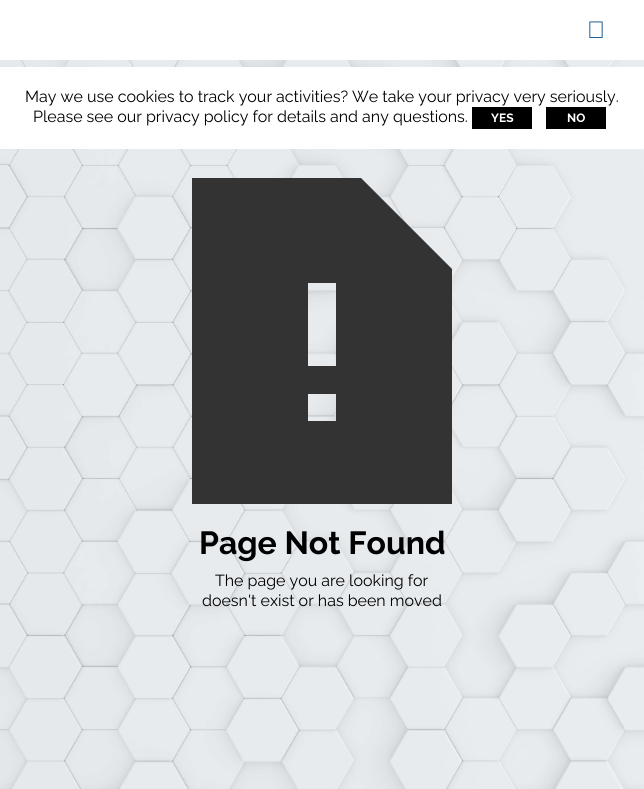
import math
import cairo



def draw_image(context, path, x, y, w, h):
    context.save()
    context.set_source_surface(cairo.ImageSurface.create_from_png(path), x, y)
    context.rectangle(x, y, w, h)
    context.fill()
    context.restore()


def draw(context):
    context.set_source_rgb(1, 1, 1)
    context.paint()
    draw_image(context, "images/1.png", 589, 21, 14, 17)
    draw_image(context, "images/2.png", 0, 60, 644, 729)
    context.set_source_rgb(1, 1, 1)
    context.rectangle(0, 67, 644, 82)
    context.fill()
    context.set_source_rgb(0, 0, 0)
    context.rectangle(472, 107, 60, 22)
    context.fill()
    context.rectangle(546, 107, 60, 22)
    context.fill()
    context.set_source_rgb(51 / 255, 51 / 255, 51 / 255)
    context.set_fill_rule(cairo.FillRule.EVEN_ODD)
    context.new_path()
    context.move_to(192, 178)
    context.line_to(361, 178)
    context.line_to(452, 269)
    context.line_to(452, 504)
    context.line_to(192, 504)
    context.close_path()
    context.move_to(308, 283)
    context.line_to(336, 283)
    context.line_to(336, 366)
    context.line_to(308, 366)
    context.close_path()
    context.move_to(308, 394)
    context.line_to(336, 394)
    context.line_to(336, 421)
    context.line_to(308, 421)
    context.close_path()
    context.fill()
    context.select_font_face("Raleway")
    context.set_font_size(16)
    context.set_source_rgb(0, 0, 0)
    context.move_to(25, 102)
    context.show_text("May we use cookies to track your activities? We take your privacy very seriously.")
    context.move_to(33, 122)
    context.show_text("Please see our privacy policy for details and any questions.")
    context.select_font_face("Raleway", cairo.FontSlant.NORMAL, cairo.FontWeight.BOLD)
    context.set_font_size(12)
    context.set_source_rgb(1, 1, 1)
    context.move_to(491, 122)
    context.show_text("YES")
    context.move_to(567, 122)
    context.show_text("NO")
    context.set_font_size(32)
    context.set_source_rgb(0, 0, 0)
    context.move_to(199, 554)
    context.show_text("Page Not Found")
    context.select_font_face("Raleway")
    context.set_font_size(16)
    context.move_to(215, 586)
    context.show_text("The page you are looking for")
    context.move_to(202, 606)
    context.show_text("doesn't exist or has been moved")


surface = cairo.ImageSurface(cairo.Format.RGB24, 644, 789)
context = cairo.Context(surface)
options = cairo.FontOptions()
options.set_hint_metrics(cairo.HintMetrics.OFF)
options.set_hint_style(cairo.HintStyle.NONE)
context.set_font_options(options)
context.set_miter_limit(4)
draw(context)
surface.write_to_png("out.png")
